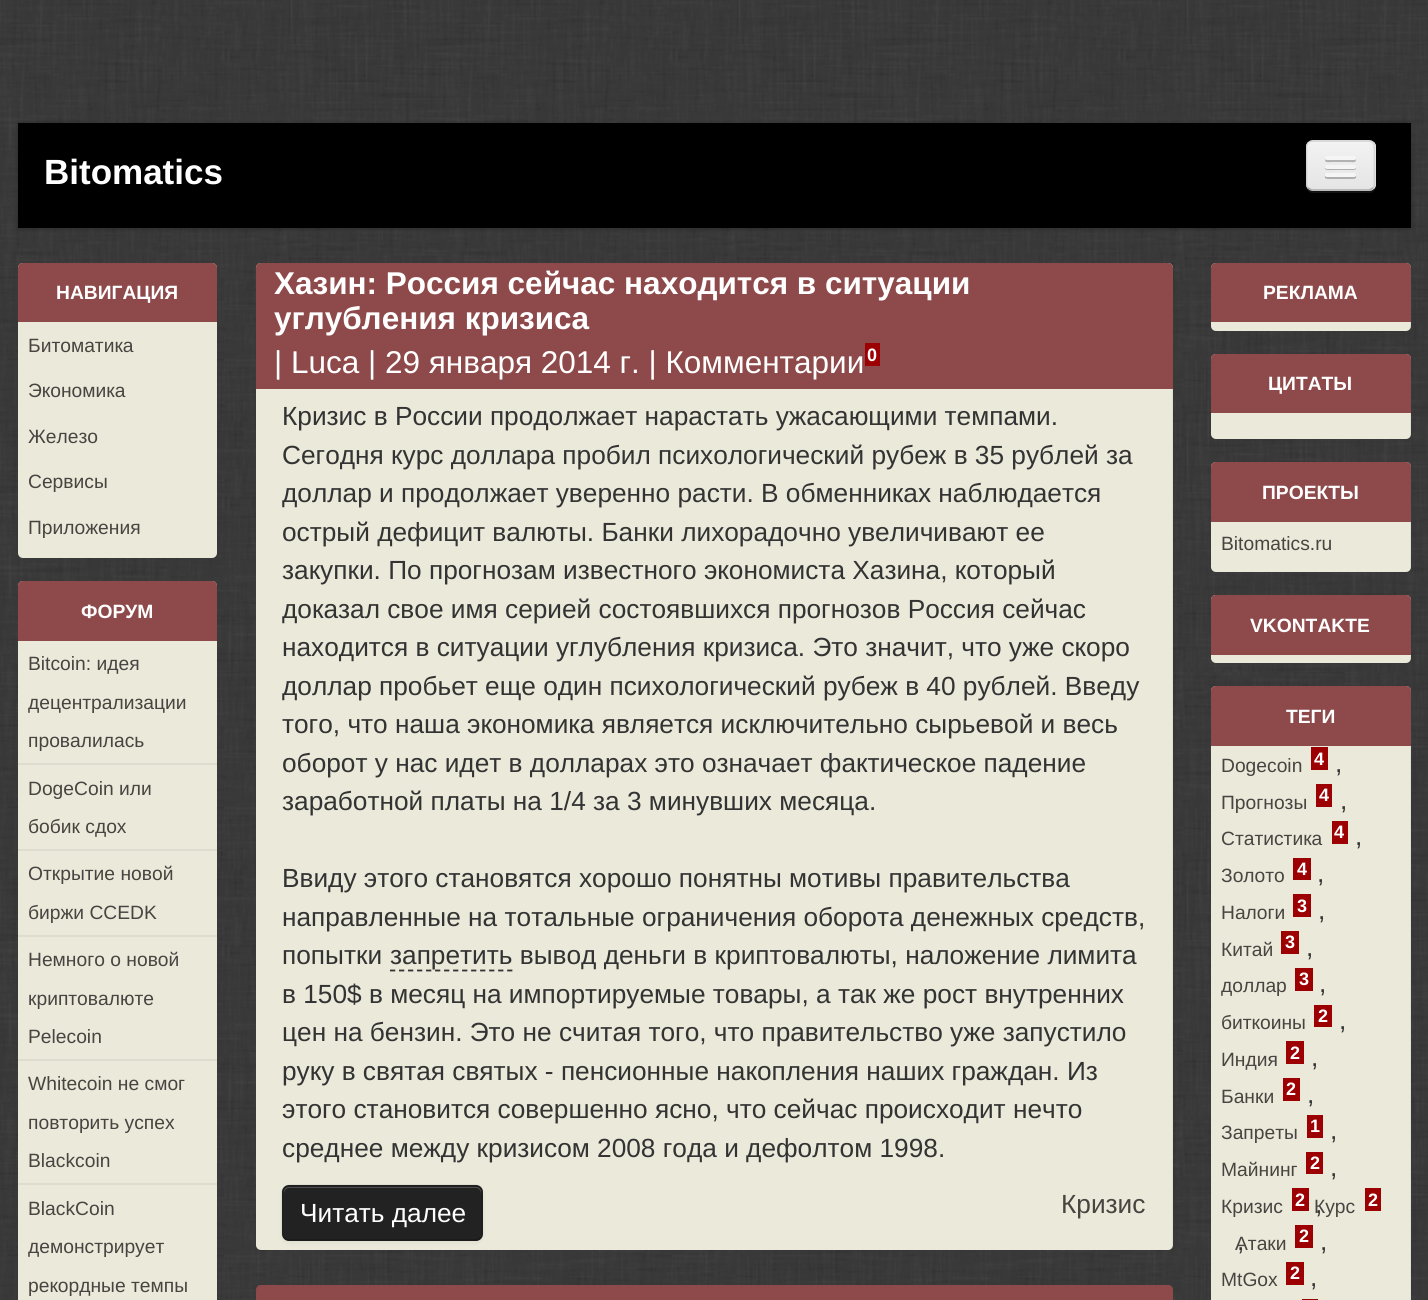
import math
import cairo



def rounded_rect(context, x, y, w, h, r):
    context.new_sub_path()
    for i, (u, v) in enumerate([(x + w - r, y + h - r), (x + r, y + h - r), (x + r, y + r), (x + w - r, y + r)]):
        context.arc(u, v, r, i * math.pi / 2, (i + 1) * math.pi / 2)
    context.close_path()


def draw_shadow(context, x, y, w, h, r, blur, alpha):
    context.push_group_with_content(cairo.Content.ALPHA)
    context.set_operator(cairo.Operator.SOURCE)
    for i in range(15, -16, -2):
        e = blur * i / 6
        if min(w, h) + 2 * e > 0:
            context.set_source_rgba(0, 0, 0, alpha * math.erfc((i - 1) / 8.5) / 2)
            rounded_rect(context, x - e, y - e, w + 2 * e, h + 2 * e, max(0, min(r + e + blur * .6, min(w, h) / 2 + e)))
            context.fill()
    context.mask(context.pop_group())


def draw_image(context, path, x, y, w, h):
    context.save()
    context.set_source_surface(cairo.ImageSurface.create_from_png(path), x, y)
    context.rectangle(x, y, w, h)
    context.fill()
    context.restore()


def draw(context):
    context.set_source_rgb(1, 1, 1)
    context.paint()
    draw_image(context, "images/1.png", 0, 0, 1428, 1300)
    context.set_source_rgb(0, 0, 0)
    draw_shadow(context, 18, 124, 1393, 105, 0, 2.5, 0.25)
    context.set_source_rgb(0, 0, 0)
    context.rectangle(18, 123, 1393, 105)
    context.fill()
    context.set_source_rgb(19 / 255, 19 / 255, 19 / 255)
    context.new_path()
    context.move_to(1306, 186)
    context.curve_to(1306, 190, 1309, 193, 1313, 193)
    context.line_to(1369, 193)
    context.curve_to(1373, 193, 1376, 190, 1376, 186)
    context.line_to(1376, 149)
    context.line_to(1375, 146)
    context.line_to(1376, 178)
    context.curve_to(1376, 192, 1373, 191, 1359, 191)
    context.line_to(1322, 191)
    context.curve_to(1317, 191, 1309, 193, 1306, 186)
    context.close_path()
    context.fill()
    context.set_source_rgb(237 / 255, 237 / 255, 237 / 255)
    rounded_rect(context, 1306, 140, 70, 51, 7)
    context.fill()
    context.save()
    rounded_rect(context, 1306, 140, 70, 51, 7)
    context.clip()
    gradient = cairo.LinearGradient(1341, 142, 1341, 189)
    gradient.add_color_stop_rgba(0, 242 / 255, 242 / 255, 242 / 255, 1)
    gradient.add_color_stop_rgba(1, 229 / 255, 229 / 255, 229 / 255, 1)
    context.set_source(gradient)
    context.rectangle(1306, 142, 70, 47)
    context.fill()
    context.restore()
    context.new_path()
    context.move_to(1373, 188)
    context.curve_to(1371.5, 189, 1370, 190, 1368.5, 190)
    context.line_to(1312.5, 190)
    context.curve_to(1311, 190, 1309.5, 189, 1308, 188)
    context.set_source_rgba(0, 0, 0, 0.25)
    context.set_line_width(1.8)
    context.stroke()
    context.new_path()
    context.move_to(1308, 188)
    context.curve_to(1307, 187, 1306.5, 185.5, 1306.5, 184)
    context.line_to(1306.5, 147)
    context.curve_to(1306.5, 145.5, 1307, 144, 1308, 142.5)
    context.curve_to(1309.5, 141.5, 1311, 141, 1312.5, 141)
    context.line_to(1368.5, 141)
    context.curve_to(1370, 141, 1371.5, 141.5, 1373, 142.5)
    context.curve_to(1374, 144, 1374.5, 145.5, 1374.5, 147)
    context.line_to(1374.5, 184)
    context.curve_to(1374.5, 185.5, 1374, 187, 1373, 188)
    context.set_source_rgba(0, 0, 0, 0.1)
    context.stroke()
    context.set_source_rgb(178 / 255, 178 / 255, 178 / 255)
    context.new_path()
    context.move_to(1325.5, 159)
    context.line_to(1325, 160.5)
    context.curve_to(1325.5, 163, 1330.5, 162, 1331.5, 162)
    context.line_to(1349.5, 162)
    context.curve_to(1350.5, 162, 1355.5, 163, 1356, 160.5)
    context.line_to(1355.5, 159)
    context.curve_to(1354.5, 159.5, 1326.5, 159.5, 1325.5, 159)
    context.close_path()
    context.fill()
    context.set_source_rgb(245 / 255, 245 / 255, 245 / 255)
    rounded_rect(context, 1325, 156, 31, 4, 2)
    context.fill()
    context.set_source_rgb(176 / 255, 176 / 255, 176 / 255)
    context.new_path()
    context.move_to(1325, 167.5)
    context.curve_to(1324, 171, 1330.5, 170, 1331.5, 170)
    context.line_to(1349.5, 170)
    context.curve_to(1350.5, 170, 1357, 171, 1356, 167.5)
    context.line_to(1354.5, 168)
    context.line_to(1326.5, 168)
    context.close_path()
    context.fill()
    context.set_source_rgb(245 / 255, 245 / 255, 245 / 255)
    rounded_rect(context, 1325, 165, 31, 4, 2)
    context.fill()
    context.set_source_rgb(174 / 255, 174 / 255, 174 / 255)
    context.new_path()
    context.move_to(1325, 176)
    context.curve_to(1323.5, 180, 1330.5, 179, 1331.5, 179)
    context.line_to(1349.5, 179)
    context.curve_to(1350.5, 179, 1357.5, 180, 1356, 176)
    context.line_to(1354.5, 176.5)
    context.line_to(1326.5, 176.5)
    context.close_path()
    context.fill()
    context.set_source_rgb(245 / 255, 245 / 255, 245 / 255)
    rounded_rect(context, 1325, 173, 31, 4, 2)
    context.fill()
    context.set_source_rgb(235 / 255, 233 / 255, 218 / 255)
    rounded_rect(context, 18, 263, 199, 295, 5)
    context.fill()
    context.set_source_rgba(0, 0, 0, 0.05)
    context.new_path()
    context.move_to(23, 264)
    context.line_to(212, 264)
    context.curve_to(215, 264, 217, 267, 217, 270)
    context.line_to(217, 268)
    context.curve_to(217, 265, 215, 263, 212, 263)
    context.line_to(23, 263)
    context.curve_to(20, 263, 18, 265, 18, 268)
    context.line_to(18, 270)
    context.curve_to(18, 267, 20, 264, 23, 264)
    context.close_path()
    context.fill()
    context.set_source_rgb(142 / 255, 74 / 255, 75 / 255)
    context.new_path()
    context.move_to(23, 263)
    context.line_to(212, 263)
    context.curve_to(215, 263, 217, 265, 217, 268)
    context.line_to(217, 322)
    context.line_to(18, 322)
    context.line_to(18, 268)
    context.curve_to(18, 265, 20, 263, 23, 263)
    context.close_path()
    context.fill()
    context.set_source_rgb(235 / 255, 233 / 255, 218 / 255)
    rounded_rect(context, 18, 581, 199, 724, 5)
    context.fill()
    context.set_source_rgba(0, 0, 0, 0.05)
    context.new_path()
    context.move_to(23, 583)
    context.line_to(212, 583)
    context.curve_to(215, 583, 217, 585, 217, 588)
    context.line_to(217, 586)
    context.curve_to(217, 583, 215, 581, 212, 581)
    context.line_to(23, 581)
    context.curve_to(20, 581, 18, 583, 18, 586)
    context.line_to(18, 588)
    context.curve_to(18, 585, 20, 583, 23, 583)
    context.close_path()
    context.fill()
    context.set_source_rgb(142 / 255, 74 / 255, 75 / 255)
    context.new_path()
    context.move_to(23, 581)
    context.line_to(212, 581)
    context.curve_to(215, 581, 217, 583, 217, 586)
    context.line_to(217, 641)
    context.line_to(18, 641)
    context.line_to(18, 586)
    context.curve_to(18, 583, 20, 581, 23, 581)
    context.close_path()
    context.fill()
    context.set_source_rgb(222 / 255, 220 / 255, 206 / 255)
    context.rectangle(18, 763, 199, 2)
    context.fill()
    context.rectangle(18, 849, 199, 2)
    context.fill()
    context.rectangle(18, 935, 199, 2)
    context.fill()
    context.rectangle(18, 1059, 199, 2)
    context.fill()
    context.rectangle(18, 1183, 199, 2)
    context.fill()
    context.set_source_rgb(235 / 255, 233 / 255, 218 / 255)
    rounded_rect(context, 256, 263, 917, 987, 5)
    context.fill()
    context.set_source_rgba(0, 0, 0, 0.05)
    context.new_path()
    context.move_to(261, 264)
    context.line_to(1167, 264)
    context.curve_to(1170, 264, 1172, 267, 1172, 270)
    context.line_to(1172, 1246)
    context.line_to(1171, 1249)
    context.curve_to(1172, 1248, 1173, 1246, 1173, 1245)
    context.line_to(1173, 268)
    context.curve_to(1173, 265, 1171, 263, 1168, 263)
    context.line_to(261, 263)
    context.curve_to(258, 263, 256, 265, 256, 268)
    context.line_to(256, 270)
    context.curve_to(256, 267, 258, 264, 261, 264)
    context.close_path()
    context.fill()
    context.set_source_rgb(142 / 255, 74 / 255, 75 / 255)
    context.new_path()
    context.move_to(261, 263)
    context.line_to(1168, 263)
    context.curve_to(1171, 263, 1173, 265, 1173, 268)
    context.line_to(1173, 389)
    context.line_to(256, 389)
    context.line_to(256, 268)
    context.curve_to(256, 265, 258, 263, 261, 263)
    context.close_path()
    context.fill()
    context.set_source_rgb(157 / 255, 0, 3 / 255)
    context.rectangle(865, 343, 15, 23)
    context.fill()
    context.new_path()
    context.move_to(390, 970.5)
    context.line_to(513, 970.5)
    context.set_source_rgb(51 / 255, 51 / 255, 51 / 255)
    context.set_dash([5.25, 3.76])
    context.stroke()
    context.set_source_rgb(0, 0, 0)
    draw_shadow(context, 282, 1187, 201, 56, 7, 2, 0.05)
    context.set_source_rgb(34 / 255, 34 / 255, 34 / 255)
    rounded_rect(context, 282, 1185, 201, 56, 7)
    context.fill()
    context.set_source_rgb(78 / 255, 78 / 255, 78 / 255)
    context.new_path()
    context.move_to(289, 1188)
    context.line_to(476, 1188)
    context.curve_to(479, 1188, 481, 1191, 481, 1194)
    context.line_to(481, 1192)
    context.curve_to(481, 1189, 479, 1187, 476, 1187)
    context.line_to(289, 1187)
    context.curve_to(286, 1187, 284, 1189, 284, 1192)
    context.line_to(284, 1194)
    context.curve_to(284, 1191, 286, 1188, 289, 1188)
    context.close_path()
    context.fill()
    context.new_path()
    context.move_to(480.5, 1238)
    context.curve_to(479, 1239, 477.5, 1240, 476, 1240)
    context.line_to(289, 1240)
    context.curve_to(287, 1240, 285.5, 1239, 284.5, 1238)
    context.set_source_rgba(0, 0, 0, 0.25)
    context.set_dash([])
    context.stroke()
    context.new_path()
    context.move_to(284.5, 1238)
    context.curve_to(283.5, 1237, 282.5, 1235.5, 282.5, 1234)
    context.line_to(282.5, 1192)
    context.curve_to(282.5, 1190, 283.5, 1188.5, 284.5, 1187.5)
    context.curve_to(285.5, 1186.5, 287, 1185.5, 289, 1185.5)
    context.line_to(476, 1185.5)
    context.curve_to(477.5, 1185.5, 479, 1186.5, 480.5, 1187.5)
    context.curve_to(481.5, 1188.5, 482, 1190, 482, 1192)
    context.line_to(482, 1234)
    context.curve_to(482, 1235.5, 481.5, 1237, 480.5, 1238)
    context.set_source_rgba(0, 0, 0, 0.1)
    context.stroke()
    context.set_source_rgba(0, 0, 0, 0.05)
    context.new_path()
    context.move_to(261, 1286)
    context.line_to(1167, 1286)
    context.curve_to(1170, 1286, 1172, 1289, 1172, 1292)
    context.line_to(1172, 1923)
    context.curve_to(1173, 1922, 1173, 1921, 1173, 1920)
    context.line_to(1173, 1290)
    context.curve_to(1173, 1287, 1171, 1285, 1168, 1285)
    context.line_to(261, 1285)
    context.curve_to(258, 1285, 256, 1287, 256, 1290)
    context.line_to(256, 1292)
    context.curve_to(256, 1289, 258, 1286, 261, 1286)
    context.close_path()
    context.fill()
    context.set_source_rgb(142 / 255, 74 / 255, 75 / 255)
    context.new_path()
    context.move_to(261, 1285)
    context.line_to(1168, 1285)
    context.curve_to(1171, 1285, 1173, 1287, 1173, 1290)
    context.line_to(1173, 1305)
    context.line_to(256, 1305)
    context.line_to(256, 1290)
    context.curve_to(256, 1287, 258, 1285, 261, 1285)
    context.close_path()
    context.fill()
    context.set_source_rgb(235 / 255, 233 / 255, 218 / 255)
    rounded_rect(context, 1211, 263, 200, 68, 5)
    context.fill()
    context.set_source_rgba(0, 0, 0, 0.05)
    context.new_path()
    context.move_to(1216, 264)
    context.line_to(1405, 264)
    context.curve_to(1408, 264, 1410, 267, 1410, 270)
    context.line_to(1410, 327)
    context.line_to(1409, 330)
    context.curve_to(1410, 329, 1411, 327, 1411, 326)
    context.line_to(1411, 268)
    context.curve_to(1411, 265, 1409, 263, 1406, 263)
    context.line_to(1216, 263)
    context.curve_to(1213, 263, 1211, 265, 1211, 268)
    context.line_to(1211, 270)
    context.curve_to(1211, 267, 1213, 264, 1216, 264)
    context.close_path()
    context.fill()
    context.set_source_rgb(142 / 255, 74 / 255, 75 / 255)
    context.new_path()
    context.move_to(1216, 263)
    context.line_to(1406, 263)
    context.curve_to(1409, 263, 1411, 265, 1411, 268)
    context.line_to(1411, 322)
    context.line_to(1211, 322)
    context.line_to(1211, 268)
    context.curve_to(1211, 265, 1213, 263, 1216, 263)
    context.close_path()
    context.fill()
    context.set_source_rgb(235 / 255, 233 / 255, 218 / 255)
    rounded_rect(context, 1211, 354, 200, 85, 5)
    context.fill()
    context.set_source_rgba(0, 0, 0, 0.05)
    context.new_path()
    context.move_to(1216, 355)
    context.line_to(1374, 355)
    context.curve_to(1416, 355, 1410, 347, 1410, 385)
    context.line_to(1410, 437)
    context.curve_to(1411, 436, 1411, 435, 1411, 434)
    context.line_to(1411, 359)
    context.curve_to(1411, 356, 1409, 354, 1406, 354)
    context.line_to(1216, 354)
    context.curve_to(1213, 354, 1211, 356, 1211, 359)
    context.line_to(1211, 360)
    context.curve_to(1211, 358, 1213, 355, 1216, 355)
    context.close_path()
    context.fill()
    context.set_source_rgb(142 / 255, 74 / 255, 75 / 255)
    context.new_path()
    context.move_to(1216, 354)
    context.line_to(1406, 354)
    context.curve_to(1409, 354, 1411, 356, 1411, 359)
    context.line_to(1411, 413)
    context.line_to(1211, 413)
    context.line_to(1211, 359)
    context.curve_to(1211, 356, 1213, 354, 1216, 354)
    context.close_path()
    context.fill()
    context.set_source_rgb(235 / 255, 233 / 255, 218 / 255)
    rounded_rect(context, 1211, 462, 200, 110, 5)
    context.fill()
    context.set_source_rgba(0, 0, 0, 0.05)
    context.new_path()
    context.move_to(1216, 464)
    context.line_to(1405, 464)
    context.curve_to(1414, 464, 1410, 484, 1410, 486)
    context.line_to(1410, 570)
    context.curve_to(1411, 569, 1411, 568, 1411, 567)
    context.line_to(1411, 467)
    context.curve_to(1411, 464, 1409, 462, 1406, 462)
    context.line_to(1216, 462)
    context.curve_to(1213, 462, 1211, 464, 1211, 467)
    context.line_to(1211, 469)
    context.curve_to(1211, 466, 1213, 464, 1216, 464)
    context.close_path()
    context.fill()
    context.set_source_rgb(142 / 255, 74 / 255, 75 / 255)
    context.new_path()
    context.move_to(1216, 462)
    context.line_to(1406, 462)
    context.curve_to(1409, 462, 1411, 464, 1411, 467)
    context.line_to(1411, 522)
    context.line_to(1211, 522)
    context.line_to(1211, 467)
    context.curve_to(1211, 464, 1213, 462, 1216, 462)
    context.close_path()
    context.fill()
    context.set_source_rgb(235 / 255, 233 / 255, 218 / 255)
    rounded_rect(context, 1211, 595, 200, 68, 5)
    context.fill()
    context.set_source_rgba(0, 0, 0, 0.05)
    context.new_path()
    context.move_to(1216, 597)
    context.line_to(1405, 597)
    context.curve_to(1408, 597, 1410, 599, 1410, 602)
    context.line_to(1410, 661)
    context.curve_to(1411, 660, 1411, 659, 1411, 658)
    context.line_to(1411, 600)
    context.curve_to(1411, 597, 1409, 595, 1406, 595)
    context.line_to(1216, 595)
    context.curve_to(1213, 595, 1211, 597, 1211, 600)
    context.line_to(1211, 602)
    context.curve_to(1211, 599, 1213, 597, 1216, 597)
    context.close_path()
    context.fill()
    context.set_source_rgb(142 / 255, 74 / 255, 75 / 255)
    context.new_path()
    context.move_to(1216, 595)
    context.line_to(1406, 595)
    context.curve_to(1409, 595, 1411, 597, 1411, 600)
    context.line_to(1411, 655)
    context.line_to(1211, 655)
    context.line_to(1211, 600)
    context.curve_to(1211, 597, 1213, 595, 1216, 595)
    context.close_path()
    context.fill()
    context.set_source_rgb(235 / 255, 233 / 255, 218 / 255)
    rounded_rect(context, 1211, 686, 200, 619, 5)
    context.fill()
    context.set_source_rgba(0, 0, 0, 0.05)
    context.new_path()
    context.move_to(1216, 688)
    context.line_to(1405, 688)
    context.curve_to(1408, 688, 1410, 690, 1410, 693)
    context.line_to(1410, 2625)
    context.line_to(1409, 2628)
    context.curve_to(1410, 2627, 1411, 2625, 1411, 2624)
    context.line_to(1411, 691)
    context.curve_to(1411, 688, 1409, 686, 1406, 686)
    context.line_to(1216, 686)
    context.curve_to(1213, 686, 1211, 688, 1211, 691)
    context.line_to(1211, 693)
    context.curve_to(1211, 690, 1213, 688, 1216, 688)
    context.close_path()
    context.fill()
    context.set_source_rgb(142 / 255, 74 / 255, 75 / 255)
    context.new_path()
    context.move_to(1216, 686)
    context.line_to(1406, 686)
    context.curve_to(1409, 686, 1411, 688, 1411, 691)
    context.line_to(1411, 746)
    context.line_to(1211, 746)
    context.line_to(1211, 691)
    context.curve_to(1211, 688, 1213, 686, 1216, 686)
    context.close_path()
    context.fill()
    context.set_source_rgb(157 / 255, 0, 3 / 255)
    context.rectangle(1311, 747, 17, 23)
    context.fill()
    context.rectangle(1316, 784, 16, 23)
    context.fill()
    context.rectangle(1332, 821, 16, 23)
    context.fill()
    context.rectangle(1293, 858, 18, 22)
    context.fill()
    context.rectangle(1293, 894, 18, 23)
    context.fill()
    context.rectangle(1281, 931, 18, 23)
    context.fill()
    context.rectangle(1295, 968, 18, 23)
    context.fill()
    context.rectangle(1314, 1005, 18, 22)
    context.fill()
    context.rectangle(1286, 1041, 18, 23)
    context.fill()
    context.rectangle(1283, 1078, 17, 23)
    context.fill()
    context.rectangle(1307, 1115, 16, 23)
    context.fill()
    context.rectangle(1306, 1152, 17, 22)
    context.fill()
    context.rectangle(1292, 1188, 17, 23)
    context.fill()
    context.rectangle(1365, 1188, 16, 23)
    context.fill()
    context.rectangle(1295, 1225, 18, 23)
    context.fill()
    context.rectangle(1286, 1262, 18, 23)
    context.fill()
    context.rectangle(1302, 1299, 16, 1)
    context.fill()
    context.select_font_face("Liberation Sans", cairo.FontSlant.NORMAL, cairo.FontWeight.BOLD)
    context.set_font_size(35)
    context.set_source_rgb(1, 1, 1)
    context.move_to(44, 184)
    context.show_text("Bitomatics")
    context.set_font_size(19.25)
    context.move_to(56, 299)
    context.show_text("НАВИГАЦИЯ")
    context.select_font_face("Liberation Sans")
    context.set_source_rgb(72 / 255, 68 / 255, 65 / 255)
    context.move_to(28, 352)
    context.show_text("Битоматика")
    context.move_to(28, 397)
    context.show_text("Экономика")
    context.move_to(28, 443)
    context.show_text("Железо")
    context.move_to(28, 488)
    context.show_text("Сервисы")
    context.move_to(28, 534)
    context.show_text("Приложения")
    context.select_font_face("Liberation Sans", cairo.FontSlant.NORMAL, cairo.FontWeight.BOLD)
    context.set_source_rgb(1, 1, 1)
    context.move_to(81, 618)
    context.show_text("ФОРУМ")
    context.select_font_face("Liberation Sans")
    context.set_source_rgb(72 / 255, 68 / 255, 65 / 255)
    context.move_to(28, 670)
    context.show_text("Bitcoin: идея")
    context.move_to(28, 709)
    context.show_text("децентрализации")
    context.move_to(28, 747)
    context.show_text("провалилась")
    context.move_to(28, 795)
    context.show_text("DogeCoin или")
    context.move_to(28, 833)
    context.show_text("бобик сдох")
    context.move_to(28, 880)
    context.show_text("Открытие новой")
    context.move_to(28, 919)
    context.show_text("биржи CCEDK")
    context.move_to(28, 966)
    context.show_text("Немного о новой")
    context.move_to(28, 1005)
    context.show_text("криптовалюте")
    context.move_to(28, 1043)
    context.show_text("Pelecoin")
    context.move_to(28, 1090)
    context.show_text("Whitecoin не смог")
    context.move_to(28, 1129)
    context.show_text("повторить успех")
    context.move_to(28, 1167)
    context.show_text("Blackcoin")
    context.move_to(28, 1215)
    context.show_text("BlackCoin")
    context.move_to(28, 1253)
    context.show_text("демонстрирует")
    context.move_to(28, 1292)
    context.show_text("рекордные темпы")
    context.select_font_face("Liberation Sans", cairo.FontSlant.NORMAL, cairo.FontWeight.BOLD)
    context.set_font_size(31.5)
    context.set_source_rgb(1, 1, 1)
    context.move_to(274, 294)
    context.show_text("Хазин: Россия сейчас находится в ситуации")
    context.move_to(274, 329)
    context.show_text("углубления кризиса")
    context.select_font_face("Liberation Sans")
    context.move_to(274, 373)
    context.show_text("| Luca | 29 января 2014 г. | Комментарии")
    context.select_font_face("Liberation Sans", cairo.FontSlant.NORMAL, cairo.FontWeight.BOLD)
    context.set_font_size(18)
    context.move_to(867, 361)
    context.show_text("0")
    context.select_font_face("Liberation Sans")
    context.set_font_size(26.25)
    context.set_source_rgb(51 / 255, 51 / 255, 51 / 255)
    context.move_to(282, 425)
    context.show_text("Кризис в России продолжает нарастать ужасающими темпами.")
    context.move_to(282, 464)
    context.show_text("Сегодня курс доллара пробил психологический рубеж в 35 рублей за")
    context.move_to(282, 502)
    context.show_text("доллар и продолжает уверенно расти. В обменниках наблюдается")
    context.move_to(282, 541)
    context.show_text("острый дефицит валюты. Банки лихорадочно увеличивают ее")
    context.move_to(282, 579)
    context.show_text("закупки. По прогнозам известного экономиста Хазина, который")
    context.move_to(282, 618)
    context.show_text("доказал свое имя серией состоявшихся прогнозов Россия сейчас")
    context.move_to(282, 656)
    context.show_text("находится в ситуации углубления кризиса. Это значит, что уже скоро")
    context.move_to(282, 695)
    context.show_text("доллар пробьет еще один психологический рубеж в 40 рублей. Введу")
    context.move_to(282, 733)
    context.show_text("того, что наша экономика является исключительно сырьевой и весь")
    context.move_to(282, 772)
    context.show_text("оборот у нас идет в долларах это означает фактическое падение")
    context.move_to(282, 810)
    context.show_text("заработной платы на 1/4 за 3 минувших месяца.")
    context.move_to(282, 887)
    context.show_text("Ввиду этого становятся хорошо понятны мотивы правительства")
    context.move_to(282, 926)
    context.show_text("направленные на тотальные ограничения оборота денежных средств,")
    context.move_to(282, 964)
    context.show_text("попытки")
    context.move_to(390, 964)
    context.show_text("запретить вывод деньги в криптовалюты, наложение лимита")
    context.move_to(282, 1003)
    context.show_text("в 150$ в месяц на импортируемые товары, а так же рост внутренних")
    context.move_to(282, 1041)
    context.show_text("цен на бензин. Это не считая того, что правительство уже запустило")
    context.move_to(282, 1080)
    context.show_text("руку в святая святых - пенсионные накопления наших граждан. Из")
    context.move_to(282, 1118)
    context.show_text("этого становится совершенно ясно, что сейчас происходит нечто")
    context.move_to(282, 1157)
    context.show_text("среднее между кризисом 2008 года и дефолтом 1998.")
    context.set_source_rgb(1, 1, 1)
    context.move_to(300, 1222)
    context.show_text("Читать далее")
    context.set_source_rgb(72 / 255, 68 / 255, 65 / 255)
    context.move_to(1061, 1213)
    context.show_text("Кризис")
    context.select_font_face("Liberation Sans", cairo.FontSlant.NORMAL, cairo.FontWeight.BOLD)
    context.set_font_size(19.25)
    context.set_source_rgb(1, 1, 1)
    context.move_to(1263, 299)
    context.show_text("РЕКЛАМА")
    context.move_to(1268, 390)
    context.show_text("ЦИТАТЫ")
    context.move_to(1262, 499)
    context.show_text("ПРОЕКТЫ")
    context.select_font_face("Liberation Sans")
    context.set_source_rgb(72 / 255, 68 / 255, 65 / 255)
    context.move_to(1221, 550)
    context.show_text("Bitomatics.ru")
    context.select_font_face("Liberation Sans", cairo.FontSlant.NORMAL, cairo.FontWeight.BOLD)
    context.set_source_rgb(1, 1, 1)
    context.move_to(1250, 632)
    context.show_text("VKONTAKTE")
    context.move_to(1286, 723)
    context.show_text("ТЕГИ")
    context.select_font_face("Liberation Sans")
    context.set_source_rgb(72 / 255, 68 / 255, 65 / 255)
    context.move_to(1221, 772)
    context.show_text("Dogecoin")
    context.select_font_face("Liberation Sans", cairo.FontSlant.NORMAL, cairo.FontWeight.BOLD)
    context.set_font_size(18)
    context.set_source_rgb(1, 1, 1)
    context.move_to(1314, 765)
    context.show_text("4")
    context.select_font_face("Liberation Sans")
    context.set_font_size(26.25)
    context.set_source_rgb(51 / 255, 51 / 255, 51 / 255)
    context.move_to(1335, 772)
    context.show_text(",")
    context.set_font_size(19.25)
    context.set_source_rgb(72 / 255, 68 / 255, 65 / 255)
    context.move_to(1221, 809)
    context.show_text("Прогнозы")
    context.select_font_face("Liberation Sans", cairo.FontSlant.NORMAL, cairo.FontWeight.BOLD)
    context.set_font_size(18)
    context.set_source_rgb(1, 1, 1)
    context.move_to(1319, 801)
    context.show_text("4")
    context.select_font_face("Liberation Sans")
    context.set_font_size(26.25)
    context.set_source_rgb(51 / 255, 51 / 255, 51 / 255)
    context.move_to(1340, 809)
    context.show_text(",")
    context.set_font_size(19.25)
    context.set_source_rgb(72 / 255, 68 / 255, 65 / 255)
    context.move_to(1221, 845)
    context.show_text("Статистика")
    context.select_font_face("Liberation Sans", cairo.FontSlant.NORMAL, cairo.FontWeight.BOLD)
    context.set_font_size(18)
    context.set_source_rgb(1, 1, 1)
    context.move_to(1334, 838)
    context.show_text("4")
    context.select_font_face("Liberation Sans")
    context.set_font_size(26.25)
    context.set_source_rgb(51 / 255, 51 / 255, 51 / 255)
    context.move_to(1355, 845)
    context.show_text(",")
    context.set_font_size(19.25)
    context.set_source_rgb(72 / 255, 68 / 255, 65 / 255)
    context.move_to(1221, 882)
    context.show_text("Золото")
    context.select_font_face("Liberation Sans", cairo.FontSlant.NORMAL, cairo.FontWeight.BOLD)
    context.set_font_size(18)
    context.set_source_rgb(1, 1, 1)
    context.move_to(1297, 875)
    context.show_text("4")
    context.select_font_face("Liberation Sans")
    context.set_font_size(26.25)
    context.set_source_rgb(51 / 255, 51 / 255, 51 / 255)
    context.move_to(1317, 882)
    context.show_text(",")
    context.set_font_size(19.25)
    context.set_source_rgb(72 / 255, 68 / 255, 65 / 255)
    context.move_to(1221, 919)
    context.show_text("Налоги")
    context.select_font_face("Liberation Sans", cairo.FontSlant.NORMAL, cairo.FontWeight.BOLD)
    context.set_font_size(18)
    context.set_source_rgb(1, 1, 1)
    context.move_to(1297, 912)
    context.show_text("3")
    context.select_font_face("Liberation Sans")
    context.set_font_size(26.25)
    context.set_source_rgb(51 / 255, 51 / 255, 51 / 255)
    context.move_to(1318, 919)
    context.show_text(",")
    context.set_font_size(19.25)
    context.set_source_rgb(72 / 255, 68 / 255, 65 / 255)
    context.move_to(1221, 956)
    context.show_text("Китай")
    context.select_font_face("Liberation Sans", cairo.FontSlant.NORMAL, cairo.FontWeight.BOLD)
    context.set_font_size(18)
    context.set_source_rgb(1, 1, 1)
    context.move_to(1285, 948)
    context.show_text("3")
    context.select_font_face("Liberation Sans")
    context.set_font_size(26.25)
    context.set_source_rgb(51 / 255, 51 / 255, 51 / 255)
    context.move_to(1306, 956)
    context.show_text(",")
    context.select_font_face("Liberation Sans", cairo.FontSlant.NORMAL, cairo.FontWeight.BOLD)
    context.set_font_size(18)
    context.set_source_rgb(1, 1, 1)
    context.move_to(1299, 985)
    context.show_text("3")
    context.select_font_face("Liberation Sans")
    context.set_font_size(19.25)
    context.set_source_rgb(72 / 255, 68 / 255, 65 / 255)
    context.move_to(1221, 992)
    context.show_text("доллар")
    context.set_font_size(26.25)
    context.set_source_rgb(51 / 255, 51 / 255, 51 / 255)
    context.move_to(1319, 992)
    context.show_text(",")
    context.set_font_size(19.25)
    context.set_source_rgb(72 / 255, 68 / 255, 65 / 255)
    context.move_to(1221, 1029)
    context.show_text("биткоины")
    context.select_font_face("Liberation Sans", cairo.FontSlant.NORMAL, cairo.FontWeight.BOLD)
    context.set_font_size(18)
    context.set_source_rgb(1, 1, 1)
    context.move_to(1318, 1022)
    context.show_text("2")
    context.select_font_face("Liberation Sans")
    context.set_font_size(26.25)
    context.set_source_rgb(51 / 255, 51 / 255, 51 / 255)
    context.move_to(1339, 1029)
    context.show_text(",")
    context.set_font_size(19.25)
    context.set_source_rgb(72 / 255, 68 / 255, 65 / 255)
    context.move_to(1221, 1066)
    context.show_text("Индия")
    context.select_font_face("Liberation Sans", cairo.FontSlant.NORMAL, cairo.FontWeight.BOLD)
    context.set_font_size(18)
    context.set_source_rgb(1, 1, 1)
    context.move_to(1290, 1059)
    context.show_text("2")
    context.select_font_face("Liberation Sans")
    context.set_font_size(26.25)
    context.set_source_rgb(51 / 255, 51 / 255, 51 / 255)
    context.move_to(1311, 1066)
    context.show_text(",")
    context.set_font_size(19.25)
    context.set_source_rgb(72 / 255, 68 / 255, 65 / 255)
    context.move_to(1221, 1103)
    context.show_text("Банки")
    context.select_font_face("Liberation Sans", cairo.FontSlant.NORMAL, cairo.FontWeight.BOLD)
    context.set_font_size(18)
    context.set_source_rgb(1, 1, 1)
    context.move_to(1286, 1095)
    context.show_text("2")
    context.select_font_face("Liberation Sans")
    context.set_font_size(26.25)
    context.set_source_rgb(51 / 255, 51 / 255, 51 / 255)
    context.move_to(1307, 1103)
    context.show_text(",")
    context.set_font_size(19.25)
    context.set_source_rgb(72 / 255, 68 / 255, 65 / 255)
    context.move_to(1221, 1139)
    context.show_text("Запреты")
    context.select_font_face("Liberation Sans", cairo.FontSlant.NORMAL, cairo.FontWeight.BOLD)
    context.set_font_size(18)
    context.set_source_rgb(1, 1, 1)
    context.move_to(1310, 1132)
    context.show_text("1")
    context.select_font_face("Liberation Sans")
    context.set_font_size(26.25)
    context.set_source_rgb(51 / 255, 51 / 255, 51 / 255)
    context.move_to(1330, 1139)
    context.show_text(",")
    context.set_font_size(19.25)
    context.set_source_rgb(72 / 255, 68 / 255, 65 / 255)
    context.move_to(1221, 1176)
    context.show_text("Майнинг")
    context.select_font_face("Liberation Sans", cairo.FontSlant.NORMAL, cairo.FontWeight.BOLD)
    context.set_font_size(18)
    context.set_source_rgb(1, 1, 1)
    context.move_to(1310, 1169)
    context.show_text("2")
    context.select_font_face("Liberation Sans")
    context.set_font_size(26.25)
    context.set_source_rgb(51 / 255, 51 / 255, 51 / 255)
    context.move_to(1330, 1176)
    context.show_text(",")
    context.set_font_size(19.25)
    context.set_source_rgb(72 / 255, 68 / 255, 65 / 255)
    context.move_to(1221, 1213)
    context.show_text("Кризис")
    context.select_font_face("Liberation Sans", cairo.FontSlant.NORMAL, cairo.FontWeight.BOLD)
    context.set_font_size(18)
    context.set_source_rgb(1, 1, 1)
    context.move_to(1295, 1206)
    context.show_text("2")
    context.move_to(1368, 1206)
    context.show_text("2")
    context.select_font_face("Liberation Sans")
    context.set_font_size(26.25)
    context.set_source_rgb(51 / 255, 51 / 255, 51 / 255)
    context.move_to(1315, 1213)
    context.show_text(",")
    context.set_font_size(19.25)
    context.set_source_rgb(72 / 255, 68 / 255, 65 / 255)
    context.move_to(1314, 1213)
    context.show_text("Курс")
    context.select_font_face("Liberation Sans", cairo.FontSlant.NORMAL, cairo.FontWeight.BOLD)
    context.set_font_size(18)
    context.set_source_rgb(1, 1, 1)
    context.move_to(1299, 1242)
    context.show_text("2")
    context.select_font_face("Liberation Sans")
    context.set_font_size(26.25)
    context.set_source_rgb(51 / 255, 51 / 255, 51 / 255)
    context.move_to(1237, 1250)
    context.show_text(",")
    context.set_font_size(19.25)
    context.set_source_rgb(72 / 255, 68 / 255, 65 / 255)
    context.move_to(1235, 1250)
    context.show_text("Атаки")
    context.set_font_size(26.25)
    context.set_source_rgb(51 / 255, 51 / 255, 51 / 255)
    context.move_to(1320, 1250)
    context.show_text(",")
    context.set_font_size(19.25)
    context.set_source_rgb(72 / 255, 68 / 255, 65 / 255)
    context.move_to(1221, 1286)
    context.show_text("MtGox")
    context.select_font_face("Liberation Sans", cairo.FontSlant.NORMAL, cairo.FontWeight.BOLD)
    context.set_font_size(18)
    context.set_source_rgb(1, 1, 1)
    context.move_to(1290, 1279)
    context.show_text("2")
    context.select_font_face("Liberation Sans")
    context.set_font_size(26.25)
    context.set_source_rgb(51 / 255, 51 / 255, 51 / 255)
    context.move_to(1310, 1286)
    context.show_text(",")


surface = cairo.ImageSurface(cairo.Format.RGB24, 1428, 1300)
context = cairo.Context(surface)
options = cairo.FontOptions()
options.set_hint_metrics(cairo.HintMetrics.OFF)
options.set_hint_style(cairo.HintStyle.NONE)
context.set_font_options(options)
context.set_miter_limit(4)
draw(context)
surface.write_to_png("out.png")
